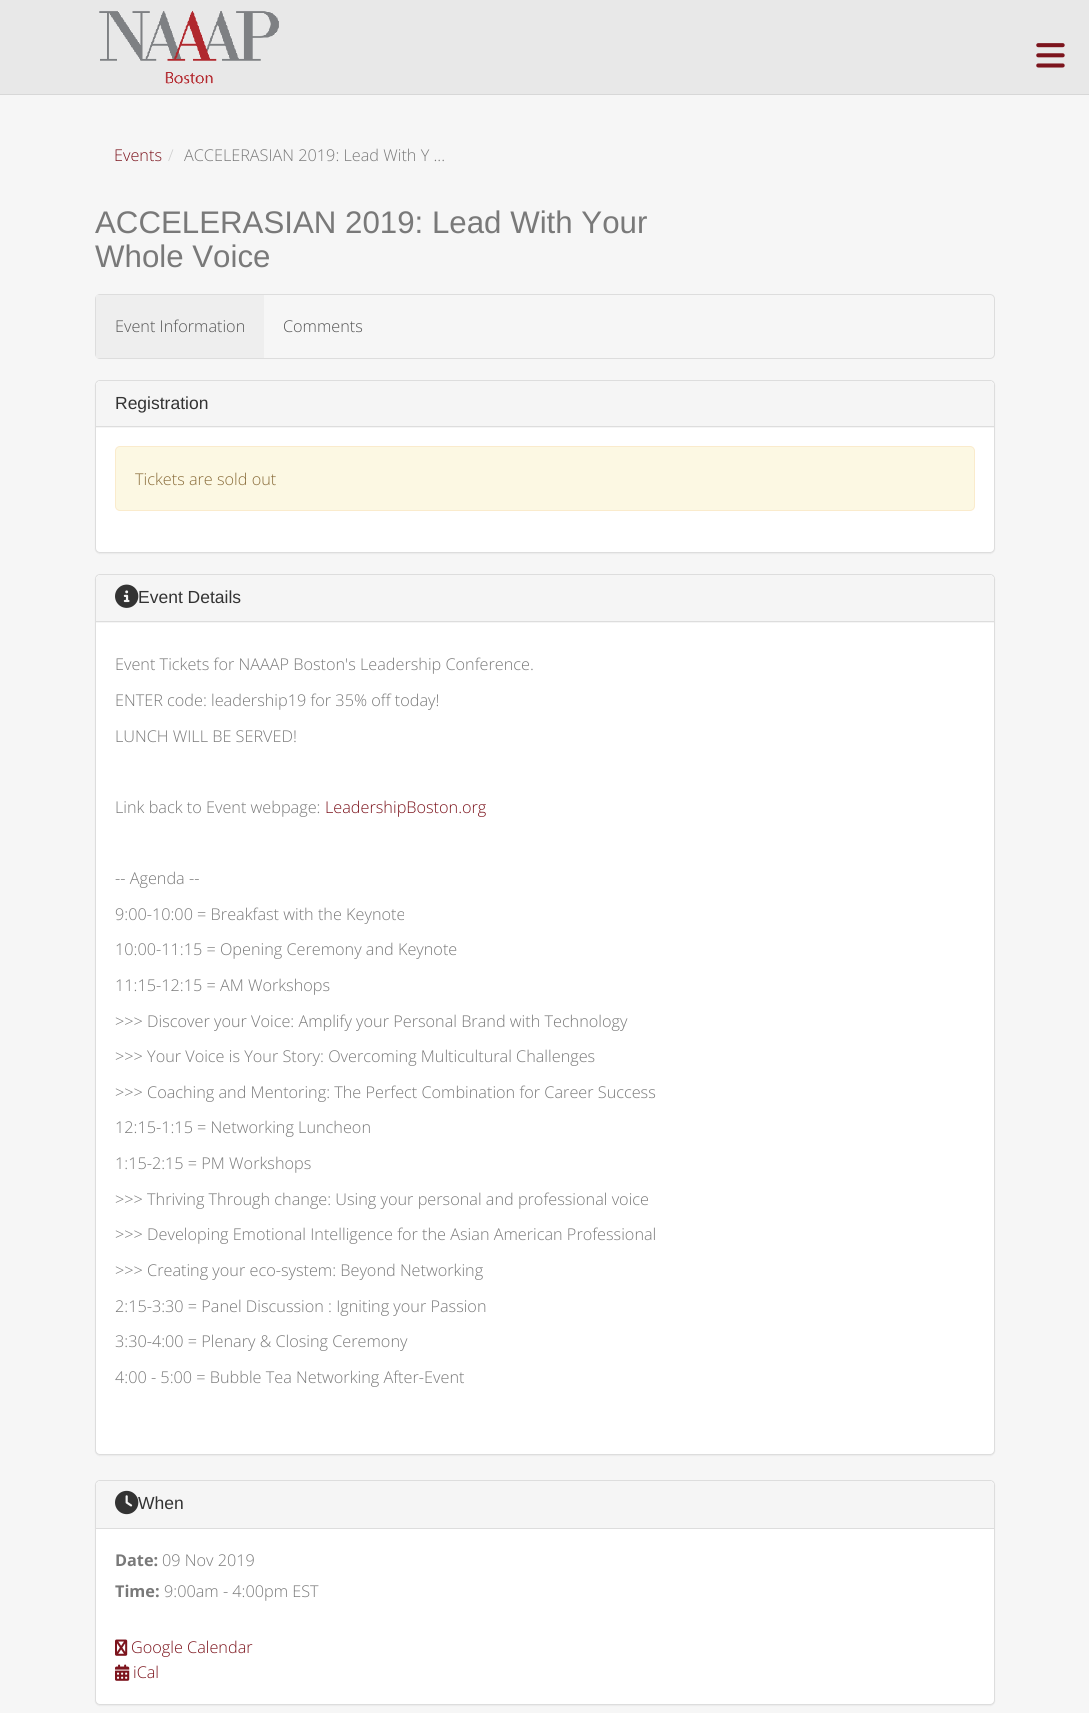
import math
import cairo



def rounded_rect(context, x, y, w, h, r):
    context.new_sub_path()
    for i, (u, v) in enumerate([(x + w - r, y + h - r), (x + r, y + h - r), (x + r, y + r), (x + w - r, y + r)]):
        context.arc(u, v, r, i * math.pi / 2, (i + 1) * math.pi / 2)
    context.close_path()


def draw_shadow(context, x, y, w, h, r, blur, alpha):
    context.push_group_with_content(cairo.Content.ALPHA)
    context.set_operator(cairo.Operator.SOURCE)
    for i in range(15, -16, -2):
        e = blur * i / 6
        if min(w, h) + 2 * e > 0:
            context.set_source_rgba(0, 0, 0, alpha * math.erfc((i - 1) / 8.5) / 2)
            rounded_rect(context, x - e, y - e, w + 2 * e, h + 2 * e, max(0, min(r + e + blur * .6, min(w, h) / 2 + e)))
            context.fill()
    context.mask(context.pop_group())


def draw_image(context, path, x, y, w, h):
    context.save()
    context.set_source_surface(cairo.ImageSurface.create_from_png(path), x, y)
    context.rectangle(x, y, w, h)
    context.fill()
    context.restore()


def draw(context):
    context.set_source_rgb(246 / 255, 246 / 255, 246 / 255)
    context.paint()
    context.set_source_rgb(232 / 255, 232 / 255, 232 / 255)
    context.rectangle(0, 0, 1089, 94)
    context.fill()
    context.set_source_rgb(215 / 255, 215 / 255, 215 / 255)
    context.rectangle(0, 94, 1089, 1)
    context.fill()
    draw_image(context, "images/1.png", 99, 10, 180, 74)
    draw_image(context, "images/2.png", 1036, 43, 29, 25)
    rounded_rect(context, 95.5, 294.5, 899, 64, 4.5)
    context.set_source_rgb(221 / 255, 221 / 255, 221 / 255)
    context.set_line_width(1)
    context.stroke()
    context.set_source_rgb(238 / 255, 238 / 255, 238 / 255)
    context.rectangle(96, 295, 168, 63)
    context.fill()
    context.set_source_rgb(0, 0, 0)
    draw_shadow(context, 95, 381, 900, 173, 5, 0.5, 0.05)
    context.set_source_rgb(1, 1, 1)
    rounded_rect(context, 95.5, 380.5, 899, 172, 4.5)
    context.fill_preserve()
    context.set_source_rgb(221 / 255, 221 / 255, 221 / 255)
    context.stroke()
    context.set_source_rgb(245 / 255, 245 / 255, 245 / 255)
    context.new_path()
    context.move_to(100, 381)
    context.line_to(990, 381)
    context.curve_to(992, 381, 994, 383, 994, 385)
    context.line_to(994, 428)
    context.line_to(96, 428)
    context.line_to(96, 385)
    context.curve_to(96, 383, 98, 381, 100, 381)
    context.close_path()
    context.fill()
    context.set_source_rgb(221 / 255, 221 / 255, 221 / 255)
    context.rectangle(96, 426, 898, 1)
    context.fill()
    context.set_source_rgb(252 / 255, 248 / 255, 227 / 255)
    rounded_rect(context, 115.5, 446.5, 859, 64, 4.5)
    context.fill_preserve()
    context.set_source_rgb(250 / 255, 235 / 255, 204 / 255)
    context.stroke()
    context.set_source_rgb(0, 0, 0)
    draw_shadow(context, 95, 575, 900, 881, 5, 0.5, 0.05)
    context.set_source_rgb(1, 1, 1)
    rounded_rect(context, 95.5, 574.5, 899, 880, 4.5)
    context.fill_preserve()
    context.set_source_rgb(221 / 255, 221 / 255, 221 / 255)
    context.stroke()
    context.set_source_rgb(245 / 255, 245 / 255, 245 / 255)
    context.new_path()
    context.move_to(100, 575)
    context.line_to(990, 575)
    context.curve_to(992, 575, 994, 577, 994, 579)
    context.line_to(994, 623)
    context.line_to(96, 623)
    context.line_to(96, 579)
    context.curve_to(96, 577, 98, 575, 100, 575)
    context.close_path()
    context.fill()
    context.set_source_rgb(221 / 255, 221 / 255, 221 / 255)
    context.rectangle(96, 621, 898, 1)
    context.fill()
    draw_image(context, "images/3.png", 115, 584, 24, 24)
    context.set_source_rgb(0, 0, 0)
    draw_shadow(context, 95, 1481, 900, 225, 5, 0.5, 0.05)
    context.set_source_rgb(1, 1, 1)
    rounded_rect(context, 95.5, 1480.5, 899, 224, 4.5)
    context.fill_preserve()
    context.set_source_rgb(221 / 255, 221 / 255, 221 / 255)
    context.stroke()
    context.set_source_rgb(245 / 255, 245 / 255, 245 / 255)
    context.new_path()
    context.move_to(100, 1481)
    context.line_to(990, 1481)
    context.curve_to(992, 1481, 994, 1483, 994, 1485)
    context.line_to(994, 1529)
    context.line_to(96, 1529)
    context.line_to(96, 1485)
    context.curve_to(96, 1483, 98, 1481, 100, 1481)
    context.close_path()
    context.fill()
    context.set_source_rgb(221 / 255, 221 / 255, 221 / 255)
    context.rectangle(96, 1528, 898, 1)
    context.fill()
    draw_image(context, "images/4.png", 115, 1490, 24, 25)
    draw_image(context, "images/5.png", 115, 1639, 13, 17)
    draw_image(context, "images/6.png", 115, 1664, 15, 17)
    context.select_font_face("Open Sans Light")
    context.set_font_size(16.25)
    context.set_source_rgb(124 / 255, 20 / 255, 29 / 255)
    context.move_to(114, 161)
    context.show_text("Events")
    context.set_source_rgb(204 / 255, 204 / 255, 204 / 255)
    context.move_to(168, 161)
    context.show_text("/")
    context.set_source_rgb(121 / 255, 121 / 255, 121 / 255)
    context.move_to(184, 161)
    context.show_text("ACCELERASIAN 2019: Lead With Y ...")
    context.select_font_face("Liberation Sans")
    context.set_font_size(31.25)
    context.move_to(95, 233)
    context.show_text("ACCELERASIAN 2019: Lead With Your")
    context.move_to(95, 267)
    context.show_text("Whole Voice")
    context.select_font_face("Open Sans Light")
    context.set_font_size(16.25)
    context.set_source_rgb(85 / 255, 85 / 255, 85 / 255)
    context.move_to(115, 332)
    context.show_text("Event Information")
    context.move_to(283, 332)
    context.show_text("Comments")
    context.select_font_face("Liberation Sans")
    context.set_font_size(17.5)
    context.set_source_rgb(51 / 255, 51 / 255, 51 / 255)
    context.move_to(115, 409)
    context.show_text("Registration")
    context.select_font_face("Open Sans Light")
    context.set_font_size(16.25)
    context.set_source_rgb(138 / 255, 109 / 255, 59 / 255)
    context.move_to(135, 485)
    context.show_text("Tickets are sold out")
    context.select_font_face("Liberation Sans")
    context.set_font_size(17.5)
    context.set_source_rgb(51 / 255, 51 / 255, 51 / 255)
    context.move_to(138, 603)
    context.show_text("Event Details")
    context.select_font_face("Open Sans Light")
    context.set_font_size(16.25)
    context.set_source_rgb(121 / 255, 121 / 255, 121 / 255)
    context.move_to(115, 670)
    context.show_text("Event Tickets for NAAAP Boston's Leadership Conference.")
    context.move_to(115, 706)
    context.show_text("ENTER code: leadership19 for 35% off today!")
    context.move_to(115, 742)
    context.show_text("LUNCH WILL BE SERVED!")
    context.move_to(115, 813)
    context.show_text("Link back to Event webpage:")
    context.set_source_rgb(124 / 255, 20 / 255, 29 / 255)
    context.move_to(325, 813)
    context.show_text("LeadershipBoston.org")
    context.set_source_rgb(121 / 255, 121 / 255, 121 / 255)
    context.move_to(115, 884)
    context.show_text("-- Agenda --")
    context.move_to(115, 920)
    context.show_text("9:00-10:00 = Breakfast with the Keynote")
    context.move_to(115, 955)
    context.show_text("10:00-11:15 = Opening Ceremony and Keynote")
    context.move_to(115, 991)
    context.show_text("11:15-12:15 = AM Workshops")
    context.move_to(115, 1027)
    context.show_text(">>> Discover your Voice: Amplify your Personal Brand with Technology")
    context.move_to(115, 1062)
    context.show_text(">>> Your Voice is Your Story: Overcoming Multicultural Challenges")
    context.move_to(115, 1098)
    context.show_text(">>> Coaching and Mentoring: The Perfect Combination for Career Success")
    context.move_to(115, 1133)
    context.show_text("12:15-1:15 = Networking Luncheon")
    context.move_to(115, 1169)
    context.show_text("1:15-2:15 = PM Workshops")
    context.move_to(115, 1205)
    context.show_text(">>> Thriving Through change: Using your personal and professional voice")
    context.move_to(115, 1240)
    context.show_text(">>> Developing Emotional Intelligence for the Asian American Professional")
    context.move_to(115, 1276)
    context.show_text(">>> Creating your eco-system: Beyond Networking")
    context.move_to(115, 1312)
    context.show_text("2:15-3:30 = Panel Discussion : Igniting your Passion")
    context.move_to(115, 1347)
    context.show_text("3:30-4:00 = Plenary & Closing Ceremony")
    context.move_to(115, 1383)
    context.show_text("4:00 - 5:00 = Bubble Tea Networking After-Event")
    context.select_font_face("Liberation Sans")
    context.set_font_size(17.5)
    context.set_source_rgb(51 / 255, 51 / 255, 51 / 255)
    context.move_to(138, 1509)
    context.show_text("When")
    context.select_font_face("Open Sans", cairo.FontSlant.NORMAL, cairo.FontWeight.BOLD)
    context.set_font_size(16.25)
    context.set_source_rgb(121 / 255, 121 / 255, 121 / 255)
    context.move_to(115, 1566)
    context.show_text("Date:")
    context.select_font_face("Open Sans Light")
    context.move_to(162, 1566)
    context.show_text("09 Nov 2019")
    context.select_font_face("Open Sans", cairo.FontSlant.NORMAL, cairo.FontWeight.BOLD)
    context.move_to(115, 1597)
    context.show_text("Time:")
    context.select_font_face("Open Sans Light")
    context.move_to(164, 1597)
    context.show_text("9:00am - 4:00pm EST")
    context.set_source_rgb(124 / 255, 20 / 255, 29 / 255)
    context.move_to(131, 1653)
    context.show_text("Google Calendar")
    context.move_to(133, 1678)
    context.show_text("iCal")


surface = cairo.ImageSurface(cairo.Format.RGB24, 1089, 1713)
context = cairo.Context(surface)
options = cairo.FontOptions()
options.set_hint_metrics(cairo.HintMetrics.OFF)
options.set_hint_style(cairo.HintStyle.NONE)
context.set_font_options(options)
context.set_miter_limit(4)
draw(context)
surface.write_to_png("out.png")
